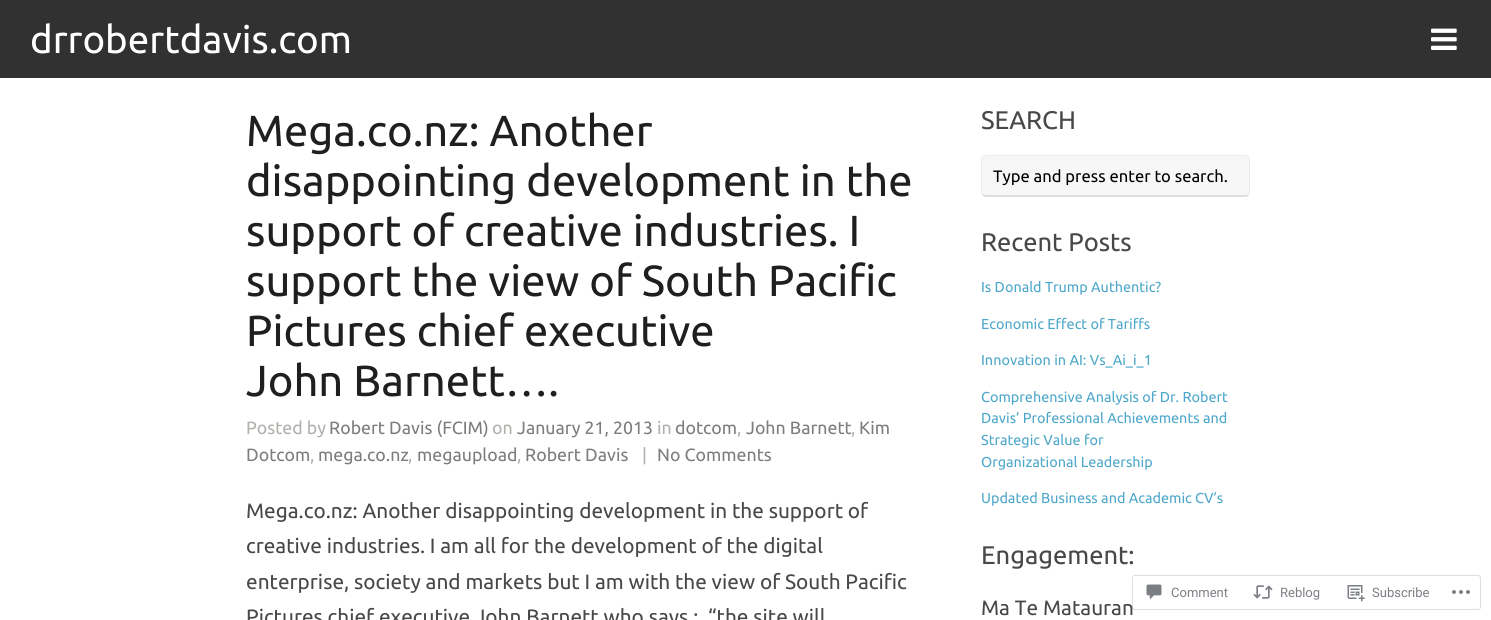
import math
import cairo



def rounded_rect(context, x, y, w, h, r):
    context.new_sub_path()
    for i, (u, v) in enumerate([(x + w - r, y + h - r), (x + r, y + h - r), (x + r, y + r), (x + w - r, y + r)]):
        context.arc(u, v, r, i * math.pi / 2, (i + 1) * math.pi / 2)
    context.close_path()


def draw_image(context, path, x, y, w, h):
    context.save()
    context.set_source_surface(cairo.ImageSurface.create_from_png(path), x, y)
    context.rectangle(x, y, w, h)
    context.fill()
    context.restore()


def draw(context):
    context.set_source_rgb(1, 1, 1)
    context.paint()
    context.set_source_rgb(49 / 255, 49 / 255, 49 / 255)
    context.rectangle(0, 0, 1491, 78)
    context.fill()
    draw_image(context, "images/1.png", 1431, 28, 26, 22)
    context.set_source_rgb(247 / 255, 247 / 255, 247 / 255)
    rounded_rect(context, 981, 155, 269, 42, 5)
    context.fill()
    context.set_source_rgba(0, 0, 0, 0.05)
    context.new_path()
    context.move_to(986, 155)
    context.curve_to(984, 155, 983, 156, 982, 156)
    context.line_to(983, 157)
    context.curve_to(984, 156, 985, 156, 986, 156)
    context.line_to(1245, 156)
    context.curve_to(1246, 156, 1247, 156, 1248, 157)
    context.line_to(1249, 156)
    context.curve_to(1248, 156, 1246, 155, 1245, 155)
    context.close_path()
    context.fill()
    context.set_source_rgb(235 / 255, 235 / 255, 235 / 255)
    context.new_path()
    context.move_to(1250, 192)
    context.line_to(1250, 160)
    context.curve_to(1250, 158.5, 1249.5, 157, 1248.5, 156.5)
    context.line_to(1248, 157)
    context.line_to(1249, 159.5)
    context.line_to(1249, 192.5)
    context.line_to(1248.5, 193.5)
    context.line_to(1249, 195)
    context.curve_to(1249.5, 194.5, 1250, 193, 1250, 192)
    context.close_path()
    context.fill()
    context.set_source_rgba(0, 0, 0, 0.1)
    context.new_path()
    context.move_to(986, 197)
    context.line_to(1245, 197)
    context.curve_to(1247, 197, 1248, 196, 1249, 195)
    context.line_to(1248, 194)
    context.curve_to(1248, 195, 1246, 195, 1245, 195)
    context.line_to(986, 195)
    context.curve_to(985, 195, 983, 195, 983, 194)
    context.line_to(982, 195)
    context.curve_to(983, 196, 984, 197, 986, 197)
    context.close_path()
    context.fill()
    context.set_source_rgb(235 / 255, 235 / 255, 235 / 255)
    context.new_path()
    context.move_to(981, 160)
    context.line_to(981, 192)
    context.curve_to(981, 193, 981.5, 194.5, 982, 195)
    context.line_to(982.5, 193.5)
    context.line_to(982, 192.5)
    context.line_to(982, 159.5)
    context.line_to(983, 157)
    context.line_to(982.5, 156.5)
    context.curve_to(981.5, 157, 981, 158.5, 981, 160)
    context.close_path()
    context.fill()
    rounded_rect(context, 1132.5, 575.5, 348, 34, 2.5)
    context.set_source_rgba(220 / 255, 220 / 255, 222 / 255, 0.98)
    context.set_line_width(1)
    context.stroke()
    draw_image(context, "images/2.png", 1146, 584, 16, 16)
    draw_image(context, "images/3.png", 1253, 585, 20, 14)
    draw_image(context, "images/4.png", 1347, 585, 18, 17)
    draw_image(context, "images/5.png", 1452, 590, 18, 4)
    context.select_font_face("Ubuntu")
    context.set_font_size(38.5)
    context.set_source_rgb(1, 1, 1)
    context.move_to(30, 53)
    context.show_text("drrobertdavis.com")
    context.set_font_size(43.5)
    context.set_source_rgb(31 / 255, 31 / 255, 31 / 255)
    context.move_to(246, 146)
    context.show_text("Mega.co.nz: Another")
    context.move_to(246, 196)
    context.show_text("disappointing development in the")
    context.move_to(246, 246)
    context.show_text("support of creative industries. I")
    context.move_to(246, 296)
    context.show_text("support the view of South Pacific")
    context.move_to(246, 346)
    context.show_text("Pictures chief executive")
    context.move_to(246, 396)
    context.show_text("John Barnett….")
    context.set_font_size(17.75)
    context.set_source_rgb(176 / 255, 176 / 255, 173 / 255)
    context.move_to(246, 434)
    context.show_text("Posted by")
    context.set_source_rgb(125 / 255, 125 / 255, 123 / 255)
    context.move_to(329, 434)
    context.show_text("Robert Davis (FCIM)")
    context.set_source_rgb(176 / 255, 176 / 255, 173 / 255)
    context.move_to(492, 434)
    context.show_text("on")
    context.set_source_rgb(125 / 255, 125 / 255, 123 / 255)
    context.move_to(517, 434)
    context.show_text("January 21, 2013")
    context.set_source_rgb(176 / 255, 176 / 255, 173 / 255)
    context.move_to(657, 434)
    context.show_text("in")
    context.set_source_rgb(125 / 255, 125 / 255, 123 / 255)
    context.move_to(675, 434)
    context.show_text("dotcom")
    context.set_source_rgb(176 / 255, 176 / 255, 173 / 255)
    context.move_to(737, 434)
    context.show_text(",")
    context.set_source_rgb(125 / 255, 125 / 255, 123 / 255)
    context.move_to(746, 434)
    context.show_text("John Barnett")
    context.set_source_rgb(176 / 255, 176 / 255, 173 / 255)
    context.move_to(851, 434)
    context.show_text(",")
    context.set_source_rgb(125 / 255, 125 / 255, 123 / 255)
    context.move_to(859, 434)
    context.show_text("Kim")
    context.move_to(246, 461)
    context.show_text("Dotcom")
    context.set_source_rgb(176 / 255, 176 / 255, 173 / 255)
    context.move_to(310, 461)
    context.show_text(",")
    context.set_source_rgb(125 / 255, 125 / 255, 123 / 255)
    context.move_to(318, 461)
    context.show_text("mega.co.nz")
    context.set_source_rgb(176 / 255, 176 / 255, 173 / 255)
    context.move_to(408, 461)
    context.show_text(",")
    context.set_source_rgb(125 / 255, 125 / 255, 123 / 255)
    context.move_to(417, 461)
    context.show_text("megaupload")
    context.set_source_rgb(176 / 255, 176 / 255, 173 / 255)
    context.move_to(517, 461)
    context.show_text(",")
    context.set_source_rgb(125 / 255, 125 / 255, 123 / 255)
    context.move_to(525, 461)
    context.show_text("Robert Davis")
    context.set_source_rgb(176 / 255, 176 / 255, 173 / 255)
    context.move_to(642, 461)
    context.show_text("|")
    context.set_source_rgb(125 / 255, 125 / 255, 123 / 255)
    context.move_to(657, 461)
    context.show_text("No Comments")
    context.set_font_size(20.8)
    context.set_source_rgb(72 / 255, 72 / 255, 72 / 255)
    context.move_to(246, 518)
    context.show_text("Mega.co.nz: Another disappointing development in the support of")
    context.move_to(246, 553)
    context.show_text("creative industries. I am all for the development of the digital")
    context.move_to(246, 589)
    context.show_text("enterprise, society and markets but I am with the view of South Pacific")
    context.move_to(246, 624)
    context.show_text("Pictures chief executive John Barnett who says :  “the site will")
    context.set_font_size(25.5)
    context.move_to(981, 129)
    context.show_text("SEARCH")
    context.set_font_size(16.6)
    context.set_source_rgb(0, 0, 0)
    context.move_to(993, 182)
    context.show_text("Type and press enter to search.")
    context.set_font_size(25.5)
    context.set_source_rgb(72 / 255, 72 / 255, 72 / 255)
    context.move_to(981, 251)
    context.show_text("Recent Posts")
    context.set_font_size(14.4)
    context.set_source_rgb(77 / 255, 167 / 255, 202 / 255)
    context.move_to(981, 292)
    context.show_text("Is Donald Trump Authentic?")
    context.move_to(981, 329)
    context.show_text("Economic Effect of Tariffs")
    context.move_to(981, 365)
    context.show_text("Innovation in AI: Vs_Ai_i_1")
    context.move_to(981, 402)
    context.show_text("Comprehensive Analysis of Dr. Robert")
    context.move_to(981, 423)
    context.show_text("Davis’ Professional Achievements and")
    context.move_to(981, 445)
    context.show_text("Strategic Value for")
    context.move_to(981, 467)
    context.show_text("Organizational Leadership")
    context.move_to(981, 503)
    context.show_text("Updated Business and Academic CV’s")
    context.set_font_size(25.5)
    context.set_source_rgb(72 / 255, 72 / 255, 72 / 255)
    context.move_to(981, 564)
    context.show_text("Engagement:")
    context.set_font_size(20.8)
    context.move_to(981, 615)
    context.show_text("Ma Te Matauran")
    context.select_font_face("Roboto")
    context.set_font_size(13)
    context.set_source_rgb(123 / 255, 127 / 255, 133 / 255)
    context.move_to(1171, 597)
    context.show_text("Comment")
    context.move_to(1280, 597)
    context.show_text("Reblog")
    context.move_to(1372, 597)
    context.show_text("Subscribe")


surface = cairo.ImageSurface(cairo.Format.RGB24, 1491, 620)
context = cairo.Context(surface)
options = cairo.FontOptions()
options.set_hint_metrics(cairo.HintMetrics.OFF)
options.set_hint_style(cairo.HintStyle.NONE)
context.set_font_options(options)
context.set_miter_limit(4)
draw(context)
surface.write_to_png("out.png")
